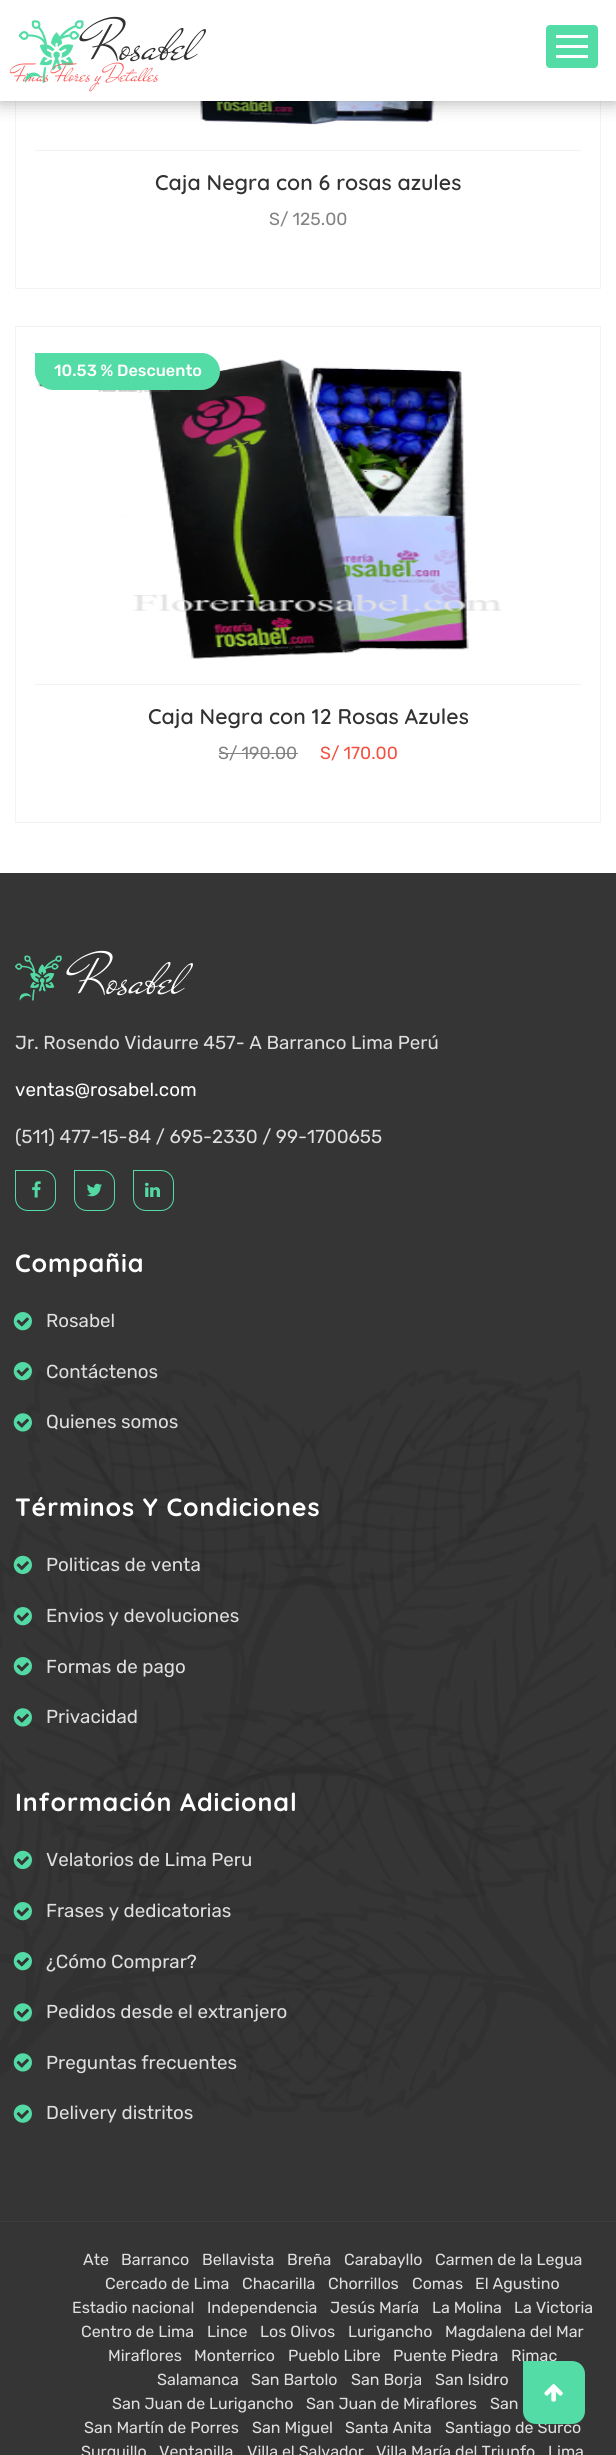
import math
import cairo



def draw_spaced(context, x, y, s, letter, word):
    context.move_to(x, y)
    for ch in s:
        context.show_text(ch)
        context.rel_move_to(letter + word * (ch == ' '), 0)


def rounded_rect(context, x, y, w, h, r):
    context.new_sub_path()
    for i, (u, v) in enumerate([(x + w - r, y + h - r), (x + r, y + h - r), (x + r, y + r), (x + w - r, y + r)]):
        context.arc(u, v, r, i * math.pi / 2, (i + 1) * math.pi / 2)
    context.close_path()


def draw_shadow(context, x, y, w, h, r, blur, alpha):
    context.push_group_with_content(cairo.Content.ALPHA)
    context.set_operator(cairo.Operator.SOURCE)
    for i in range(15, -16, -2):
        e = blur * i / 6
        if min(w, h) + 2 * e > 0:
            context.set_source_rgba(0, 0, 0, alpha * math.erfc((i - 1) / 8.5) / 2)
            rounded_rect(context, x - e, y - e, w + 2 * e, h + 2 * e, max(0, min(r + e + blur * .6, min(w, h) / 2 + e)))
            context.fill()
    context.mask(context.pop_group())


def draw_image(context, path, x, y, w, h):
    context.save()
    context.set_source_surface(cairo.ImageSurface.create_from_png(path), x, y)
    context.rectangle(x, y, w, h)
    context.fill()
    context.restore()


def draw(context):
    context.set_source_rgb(1, 1, 1)
    context.paint()
    context.rectangle(15.5, -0.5, 585, 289)
    context.set_source_rgb(243 / 255, 243 / 255, 243 / 255)
    context.set_line_width(1)
    context.stroke()
    draw_image(context, "images/2.png", 119, 101, 364, 24)
    context.set_source_rgb(0, 0, 0)
    draw_shadow(context, 0, 0, 616, 101, 0, 9.5, 0.35)
    context.set_source_rgb(1, 1, 1)
    context.rectangle(0, 0, 616, 101)
    context.fill()
    draw_image(context, "images/1.png", 18, 20, 66, 63)
    context.set_source_rgb(83 / 255, 220 / 255, 165 / 255)
    rounded_rect(context, 546, 25, 52, 43, 4)
    context.fill()
    context.set_source_rgb(1, 1, 1)
    context.rectangle(556, 35, 32, 3)
    context.fill()
    context.rectangle(556, 45, 32, 3)
    context.fill()
    context.rectangle(556, 55, 32, 3)
    context.fill()
    context.set_source_rgb(243 / 255, 243 / 255, 243 / 255)
    context.rectangle(35, 150, 546, 1)
    context.fill()
    context.rectangle(15.5, 326.5, 585, 496)
    context.stroke()
    draw_image(context, "images/3.png", 38, 355, 464, 304)
    context.set_source_rgb(83 / 255, 220 / 255, 165 / 255)
    context.new_path()
    context.move_to(35, 353)
    context.line_to(201.5, 353)
    context.curve_to(211.5, 353, 220, 361.5, 220, 371.5)
    context.curve_to(220, 381.5, 211.5, 390, 201.5, 390)
    context.line_to(53.5, 390)
    context.curve_to(43.5, 390, 35, 381.5, 35, 371.5)
    context.close_path()
    context.fill()
    context.set_source_rgb(243 / 255, 243 / 255, 243 / 255)
    context.rectangle(35, 684, 546, 1)
    context.fill()
    context.set_source_rgb(132 / 255, 131 / 255, 131 / 255)
    context.rectangle(219, 753, 79, 1)
    context.fill()
    context.set_source_rgb(53 / 255, 53 / 255, 53 / 255)
    context.rectangle(0, 873, 616, 1582)
    context.fill()
    context.set_source_rgb(61 / 255, 61 / 255, 64 / 255)
    context.rectangle(0, 2221, 616, 1)
    context.fill()
    draw_image(context, "images/4.png", 15, 955, 47, 46)
    context.new_path()
    context.move_to(15.5, 1170.5)
    context.line_to(43, 1170.5)
    context.curve_to(50, 1170.5, 55.5, 1176, 55.5, 1183)
    context.line_to(55.5, 1198)
    context.curve_to(55.5, 1205, 50, 1210.5, 43, 1210.5)
    context.line_to(28, 1210.5)
    context.curve_to(21, 1210.5, 15.5, 1205, 15.5, 1198)
    context.close_path()
    context.set_source_rgb(85 / 255, 220 / 255, 166 / 255)
    context.stroke()
    draw_image(context, "images/5.png", 32, 1181, 9, 17)
    context.new_path()
    context.move_to(74.5, 1170.5)
    context.line_to(102, 1170.5)
    context.curve_to(109, 1170.5, 114.5, 1176, 114.5, 1183)
    context.line_to(114.5, 1198)
    context.curve_to(114.5, 1205, 109, 1210.5, 102, 1210.5)
    context.line_to(87, 1210.5)
    context.curve_to(80, 1210.5, 74.5, 1205, 74.5, 1198)
    context.close_path()
    context.stroke()
    draw_image(context, "images/6.png", 87, 1183, 15, 14)
    context.new_path()
    context.move_to(133.5, 1170.5)
    context.line_to(161, 1170.5)
    context.curve_to(168, 1170.5, 173.5, 1176, 173.5, 1183)
    context.line_to(173.5, 1198)
    context.curve_to(173.5, 1205, 168, 1210.5, 161, 1210.5)
    context.line_to(146, 1210.5)
    context.curve_to(139, 1210.5, 133.5, 1205, 133.5, 1198)
    context.close_path()
    context.stroke()
    draw_image(context, "images/7.png", 145, 1182, 15, 15)
    draw_image(context, "images/8.png", 13, 1312, 19, 19)
    draw_image(context, "images/21.png", 59, 1370, 557, 747)
    draw_image(context, "images/20.png", 0, 1370, 556, 747)
    draw_image(context, "images/8.png", 13, 1362, 19, 19)
    draw_image(context, "images/9.png", 13, 1413, 19, 19)
    draw_image(context, "images/10.png", 13, 1555, 19, 19)
    draw_image(context, "images/11.png", 13, 1607, 19, 19)
    draw_image(context, "images/12.png", 13, 1657, 19, 19)
    draw_image(context, "images/13.png", 13, 1708, 19, 19)
    draw_image(context, "images/14.png", 13, 1850, 19, 19)
    draw_image(context, "images/15.png", 13, 1902, 19, 19)
    draw_image(context, "images/16.png", 13, 1952, 19, 19)
    draw_image(context, "images/17.png", 13, 2003, 19, 19)
    draw_image(context, "images/18.png", 13, 2053, 19, 19)
    draw_image(context, "images/19.png", 13, 2104, 19, 19)
    context.select_font_face("Mr De Haviland")
    context.set_font_size(56)
    context.set_source_rgb(50 / 255, 50 / 255, 50 / 255)
    context.move_to(88, 59)
    context.show_text("Rosabel")
    context.set_font_size(25)
    context.set_source_rgb(253 / 255, 84 / 255, 84 / 255)
    context.move_to(13, 81)
    context.show_text("Finas Flores y Detalles")
    context.select_font_face("Quicksand SemiBold")
    context.set_font_size(21.25)
    context.set_source_rgb(50 / 255, 50 / 255, 50 / 255)
    context.move_to(155, 190)
    context.show_text("Caja Negra con 6 rosas azules")
    context.select_font_face("Rubik")
    context.set_font_size(17.5)
    context.set_source_rgb(132 / 255, 131 / 255, 131 / 255)
    context.move_to(269, 225)
    context.show_text("S/ 125.00")
    context.select_font_face("Rubik Medium")
    context.set_font_size(16.25)
    context.set_source_rgb(1, 1, 1)
    context.move_to(54, 376)
    context.show_text("10.53 % Descuento")
    context.select_font_face("Quicksand SemiBold")
    context.set_font_size(21.25)
    context.set_source_rgb(50 / 255, 50 / 255, 50 / 255)
    context.move_to(148, 724)
    context.show_text("Caja Negra con 12 Rosas Azules")
    context.select_font_face("Rubik")
    context.set_font_size(17.5)
    context.set_source_rgb(132 / 255, 131 / 255, 131 / 255)
    context.move_to(218, 759)
    context.show_text("S/ 190.00")
    context.set_source_rgb(243 / 255, 81 / 255, 65 / 255)
    context.move_to(320, 759)
    context.show_text("S/ 170.00")
    context.select_font_face("Mr De Haviland")
    context.set_font_size(56)
    context.set_source_rgb(1, 1, 1)
    context.move_to(75, 993)
    context.show_text("Rosabel")
    context.select_font_face("Rubik")
    context.set_font_size(18.75)
    context.set_source_rgb(224 / 255, 222 / 255, 222 / 255)
    context.move_to(15, 1049)
    context.show_text("Jr. Rosendo Vidaurre 457- A Barranco Lima Perú")
    context.set_source_rgb(1, 1, 1)
    context.move_to(15, 1096)
    context.show_text("ventas@rosabel.com")
    context.set_source_rgb(224 / 255, 222 / 255, 222 / 255)
    context.move_to(15, 1143)
    context.show_text("(511) 477-15-84 / 695-2330 / 99-1700655")
    context.select_font_face("Quicksand", cairo.FontSlant.NORMAL, cairo.FontWeight.BOLD)
    context.set_font_size(25)
    context.set_source_rgb(1, 1, 1)
    draw_spaced(context, 15, 1272, "Compañia", 0.9, 0)
    context.select_font_face("Rubik")
    context.set_font_size(18.75)
    context.set_source_rgb(224 / 255, 222 / 255, 222 / 255)
    context.move_to(46, 1327)
    context.show_text("Rosabel")
    context.move_to(46, 1378)
    context.show_text("Contáctenos")
    context.move_to(46, 1428)
    context.show_text("Quienes somos")
    context.select_font_face("Quicksand", cairo.FontSlant.NORMAL, cairo.FontWeight.BOLD)
    context.set_font_size(25)
    context.set_source_rgb(1, 1, 1)
    draw_spaced(context, 15, 1516, "Términos Y Condiciones", 0.9, 0)
    context.select_font_face("Rubik")
    context.set_font_size(18.75)
    context.set_source_rgb(224 / 255, 222 / 255, 222 / 255)
    context.move_to(46, 1571)
    context.show_text("Politicas de venta")
    context.move_to(46, 1622)
    context.show_text("Envios y devoluciones")
    context.move_to(46, 1673)
    context.show_text("Formas de pago")
    context.move_to(46, 1723)
    context.show_text("Privacidad")
    context.select_font_face("Quicksand", cairo.FontSlant.NORMAL, cairo.FontWeight.BOLD)
    context.set_font_size(25)
    context.set_source_rgb(1, 1, 1)
    draw_spaced(context, 15, 1811, "Información Adicional", 0.9, 0)
    context.select_font_face("Rubik")
    context.set_font_size(18.75)
    context.set_source_rgb(224 / 255, 222 / 255, 222 / 255)
    context.move_to(46, 1866)
    context.show_text("Velatorios de Lima Peru")
    context.move_to(46, 1917)
    context.show_text("Frases y dedicatorias")
    context.move_to(46, 1968)
    context.show_text("¿Cómo Comprar?")
    context.move_to(46, 2018)
    context.show_text("Pedidos desde el extranjero")
    context.move_to(46, 2069)
    context.show_text("Preguntas frecuentes")
    context.move_to(46, 2119)
    context.show_text("Delivery distritos")
    context.set_font_size(16)
    context.move_to(83, 2265)
    context.show_text("Ate")
    context.move_to(121, 2265)
    context.show_text("Barranco")
    context.move_to(202, 2265)
    context.show_text("Bellavista")
    context.move_to(287, 2265)
    context.show_text("Breña")
    context.move_to(344, 2265)
    context.show_text("Carabayllo")
    context.move_to(435, 2265)
    context.show_text("Carmen de la Legua")
    context.move_to(105, 2289)
    context.show_text("Cercado de Lima")
    context.move_to(242, 2289)
    context.show_text("Chacarilla")
    context.move_to(328, 2289)
    context.show_text("Chorrillos")
    context.move_to(412, 2289)
    context.show_text("Comas")
    context.move_to(475, 2289)
    context.show_text("El Agustino")
    context.move_to(72, 2313)
    context.show_text("Estadio nacional")
    context.move_to(207, 2313)
    context.show_text("Independencia")
    context.move_to(330, 2313)
    context.show_text("Jesús María")
    context.move_to(432, 2313)
    context.show_text("La Molina")
    context.move_to(514, 2313)
    context.show_text("La Victoria")
    context.move_to(81, 2337)
    context.show_text("Centro de Lima")
    context.move_to(207, 2337)
    context.show_text("Lince")
    context.move_to(260, 2337)
    context.show_text("Los Olivos")
    context.move_to(348, 2337)
    context.show_text("Lurigancho")
    context.move_to(445, 2337)
    context.show_text("Magdalena del Mar")
    context.move_to(108, 2361)
    context.show_text("Miraflores")
    context.move_to(194, 2361)
    context.show_text("Monterrico")
    context.move_to(288, 2361)
    context.show_text("Pueblo Libre")
    context.move_to(393, 2361)
    context.show_text("Puente Piedra")
    context.move_to(511, 2361)
    context.show_text("Rimac")
    context.move_to(157, 2385)
    context.show_text("Salamanca")
    context.move_to(251, 2385)
    context.show_text("San Bartolo")
    context.move_to(351, 2385)
    context.show_text("San Borja")
    context.move_to(435, 2385)
    context.show_text("San Isidro")
    context.move_to(112, 2409)
    context.show_text("San Juan de Lurigancho")
    context.move_to(306, 2409)
    context.show_text("San Juan de Miraflores")
    context.move_to(490, 2409)
    context.show_text("San")
    context.move_to(84, 2433)
    context.show_text("San Martín de Porres")
    context.move_to(252, 2433)
    context.show_text("San Miguel")
    context.move_to(345, 2433)
    context.show_text("Santa Anita")
    context.move_to(445, 2433)
    context.show_text("Santiago de Surco")
    context.move_to(81, 2457)
    context.show_text("Surquillo")
    context.move_to(159, 2457)
    context.show_text("Ventanilla")
    context.move_to(247, 2457)
    context.show_text("Villa el Salvador")
    context.move_to(376, 2457)
    context.show_text("Villa María del Triunfo")
    context.move_to(548, 2457)
    context.show_text("Lima")
    context.set_source_rgb(83 / 255, 220 / 255, 165 / 255)
    context.new_path()
    context.move_to(524.5, 2362.5)
    context.line_to(572, 2362.5)
    context.curve_to(578.5, 2362.5, 583.5, 2367.5, 583.5, 2374)
    context.line_to(583.5, 2411)
    context.curve_to(583.5, 2417.5, 578.5, 2422.5, 572, 2422.5)
    context.line_to(536, 2422.5)
    context.curve_to(529.5, 2422.5, 524.5, 2417.5, 524.5, 2411)
    context.close_path()
    context.fill_preserve()
    context.set_line_width(3)
    context.stroke()
    draw_image(context, "images/22.png", 544, 2384, 19, 18)


surface = cairo.ImageSurface(cairo.Format.RGB24, 616, 2455)
context = cairo.Context(surface)
options = cairo.FontOptions()
options.set_hint_metrics(cairo.HintMetrics.OFF)
options.set_hint_style(cairo.HintStyle.NONE)
context.set_font_options(options)
context.set_miter_limit(4)
draw(context)
surface.write_to_png("out.png")
